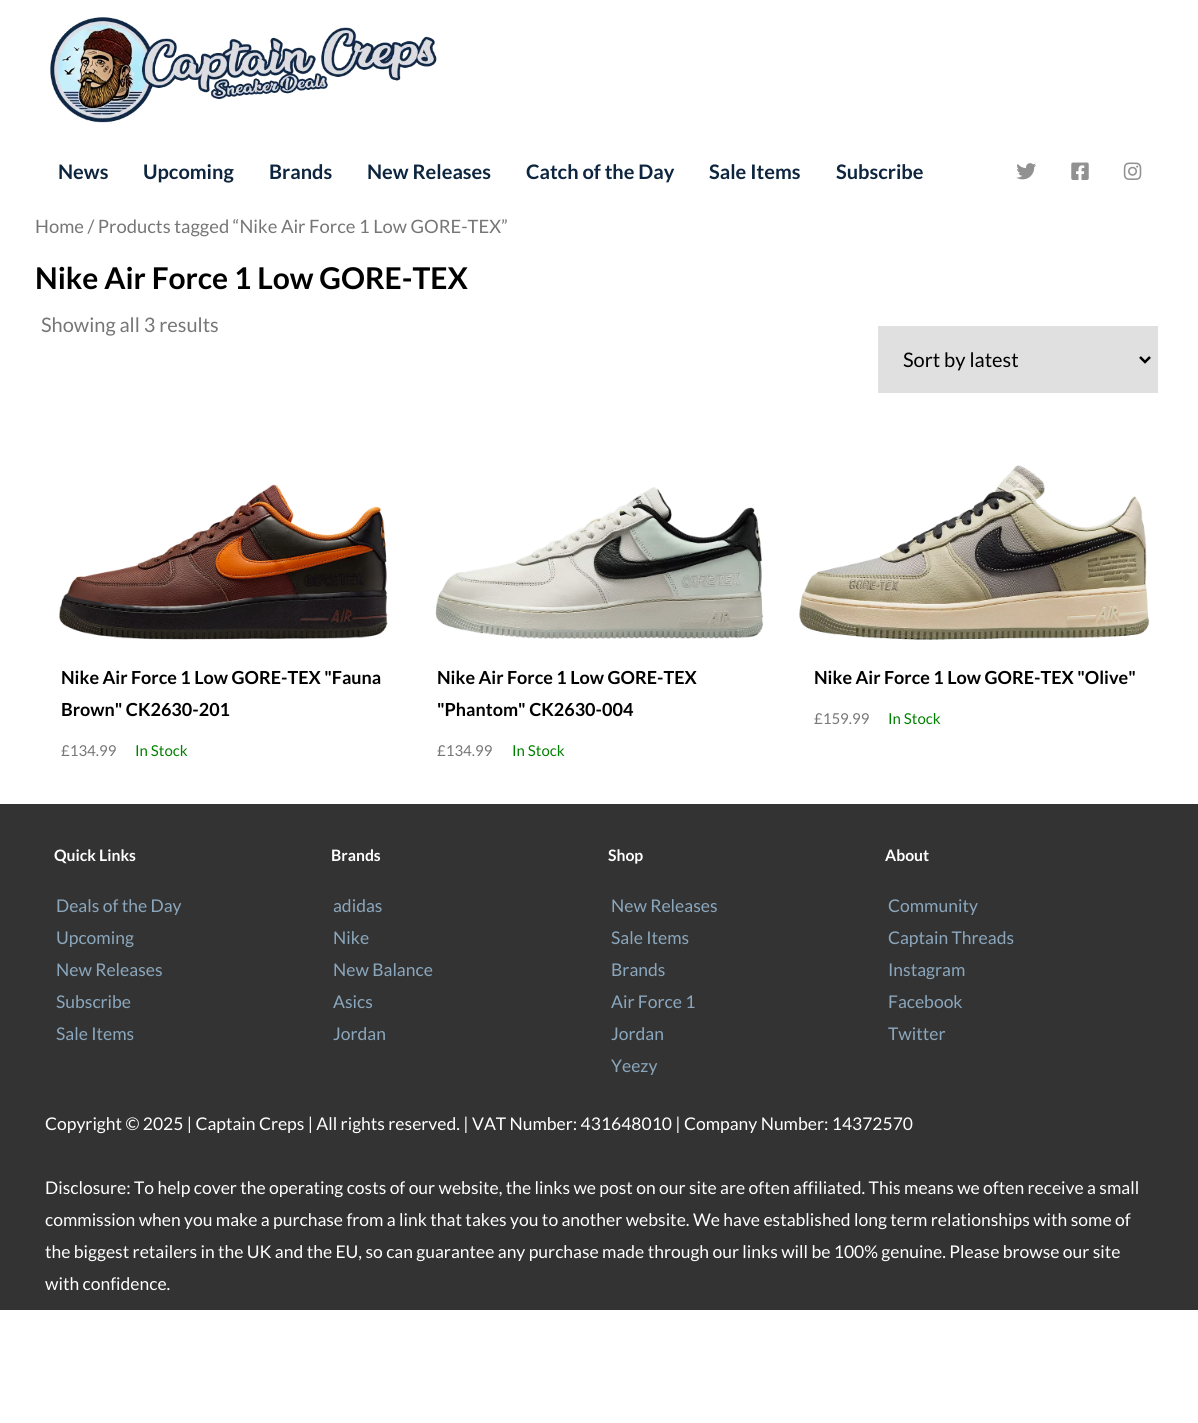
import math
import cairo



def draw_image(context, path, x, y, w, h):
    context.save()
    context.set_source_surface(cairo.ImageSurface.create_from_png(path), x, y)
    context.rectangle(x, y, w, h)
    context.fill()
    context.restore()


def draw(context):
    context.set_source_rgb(1, 1, 1)
    context.paint()
    draw_image(context, "images/1.png", 50, 17, 387, 106)
    draw_image(context, "images/2.png", 1016, 163, 20, 17)
    draw_image(context, "images/3.png", 1071, 162, 18, 18)
    draw_image(context, "images/4.png", 1123, 162, 19, 18)
    context.set_source_rgb(224 / 255, 224 / 255, 224 / 255)
    context.rectangle(878, 326, 280, 67)
    context.fill()
    context.new_path()
    context.move_to(1140, 357)
    context.line_to(1145, 362)
    context.line_to(1150, 357)
    context.set_source_rgb(0, 0, 0)
    context.set_line_width(2.5)
    context.stroke()
    draw_image(context, "images/5.png", 59, 484, 329, 156)
    draw_image(context, "images/6.png", 435, 487, 329, 152)
    draw_image(context, "images/7.png", 799, 465, 351, 175)
    context.set_source_rgb(51 / 255, 51 / 255, 51 / 255)
    context.rectangle(0, 804, 1198, 506)
    context.fill()
    context.select_font_face("Lato", cairo.FontSlant.NORMAL, cairo.FontWeight.BOLD)
    context.set_font_size(20)
    context.set_source_rgb(13 / 255, 37 / 255, 63 / 255)
    context.move_to(58, 179)
    context.show_text("News")
    context.move_to(143, 179)
    context.show_text("Upcoming")
    context.move_to(269, 179)
    context.show_text("Brands")
    context.move_to(367, 179)
    context.show_text("New Releases")
    context.move_to(526, 179)
    context.show_text("Catch of the Day")
    context.move_to(709, 179)
    context.show_text("Sale Items")
    context.move_to(836, 179)
    context.show_text("Subscribe")
    context.select_font_face("Lato")
    context.set_font_size(18.4)
    context.set_source_rgb(118 / 255, 118 / 255, 118 / 255)
    context.move_to(35, 233)
    context.show_text("Home / Products tagged “Nike Air Force 1 Low GORE-TEX”")
    context.select_font_face("Lato", cairo.FontSlant.NORMAL, cairo.FontWeight.BOLD)
    context.set_font_size(30)
    context.set_source_rgb(0, 0, 0)
    context.move_to(35, 289)
    context.show_text("Nike Air Force 1 Low GORE-TEX")
    context.select_font_face("Lato")
    context.set_font_size(20)
    context.set_source_rgb(118 / 255, 118 / 255, 118 / 255)
    context.move_to(41, 332)
    context.show_text("Showing all 3 results")
    context.set_source_rgb(0, 0, 0)
    context.move_to(903, 367)
    context.show_text("Sort by latest")
    context.select_font_face("Lato", cairo.FontSlant.NORMAL, cairo.FontWeight.BOLD)
    context.set_font_size(18)
    context.move_to(61, 684)
    context.show_text("Nike Air Force 1 Low GORE-TEX \"Fauna")
    context.move_to(61, 716)
    context.show_text("Brown\" CK2630-201")
    context.select_font_face("Lato")
    context.set_font_size(15)
    context.set_source_rgb(118 / 255, 118 / 255, 118 / 255)
    context.move_to(61, 756)
    context.show_text("£134.99")
    context.set_source_rgb(0, 128 / 255, 0)
    context.move_to(135, 756)
    context.show_text("In Stock")
    context.select_font_face("Lato", cairo.FontSlant.NORMAL, cairo.FontWeight.BOLD)
    context.set_font_size(18)
    context.set_source_rgb(0, 0, 0)
    context.move_to(437, 684)
    context.show_text("Nike Air Force 1 Low GORE-TEX")
    context.move_to(437, 716)
    context.show_text("\"Phantom\" CK2630-004")
    context.select_font_face("Lato")
    context.set_font_size(15)
    context.set_source_rgb(118 / 255, 118 / 255, 118 / 255)
    context.move_to(437, 756)
    context.show_text("£134.99")
    context.set_source_rgb(0, 128 / 255, 0)
    context.move_to(512, 756)
    context.show_text("In Stock")
    context.select_font_face("Lato", cairo.FontSlant.NORMAL, cairo.FontWeight.BOLD)
    context.set_font_size(18)
    context.set_source_rgb(0, 0, 0)
    context.move_to(814, 684)
    context.show_text("Nike Air Force 1 Low GORE-TEX \"Olive\"")
    context.select_font_face("Lato")
    context.set_font_size(15)
    context.set_source_rgb(118 / 255, 118 / 255, 118 / 255)
    context.move_to(814, 724)
    context.show_text("£159.99")
    context.set_source_rgb(0, 128 / 255, 0)
    context.move_to(888, 724)
    context.show_text("In Stock")
    context.select_font_face("Lato", cairo.FontSlant.NORMAL, cairo.FontWeight.BOLD)
    context.set_font_size(15.75)
    context.set_source_rgb(1, 1, 1)
    context.move_to(54, 861)
    context.show_text("Quick Links")
    context.select_font_face("Lato")
    context.set_font_size(17.5)
    context.set_source_rgb(139 / 255, 167 / 255, 189 / 255)
    context.move_to(56, 912)
    context.show_text("Deals of the Day")
    context.move_to(56, 944)
    context.show_text("Upcoming")
    context.move_to(56, 976)
    context.show_text("New Releases")
    context.move_to(56, 1008)
    context.show_text("Subscribe")
    context.move_to(56, 1040)
    context.show_text("Sale Items")
    context.select_font_face("Lato", cairo.FontSlant.NORMAL, cairo.FontWeight.BOLD)
    context.set_font_size(15.75)
    context.set_source_rgb(1, 1, 1)
    context.move_to(331, 861)
    context.show_text("Brands")
    context.select_font_face("Lato")
    context.set_font_size(17.5)
    context.set_source_rgb(139 / 255, 167 / 255, 189 / 255)
    context.move_to(333, 912)
    context.show_text("adidas")
    context.move_to(333, 944)
    context.show_text("Nike")
    context.move_to(333, 976)
    context.show_text("New Balance")
    context.move_to(333, 1008)
    context.show_text("Asics")
    context.move_to(333, 1040)
    context.show_text("Jordan")
    context.select_font_face("Lato", cairo.FontSlant.NORMAL, cairo.FontWeight.BOLD)
    context.set_font_size(15.75)
    context.set_source_rgb(1, 1, 1)
    context.move_to(608, 861)
    context.show_text("Shop")
    context.select_font_face("Lato")
    context.set_font_size(17.5)
    context.set_source_rgb(139 / 255, 167 / 255, 189 / 255)
    context.move_to(611, 912)
    context.show_text("New Releases")
    context.move_to(611, 944)
    context.show_text("Sale Items")
    context.move_to(611, 976)
    context.show_text("Brands")
    context.move_to(611, 1008)
    context.show_text("Air Force 1")
    context.move_to(611, 1040)
    context.show_text("Jordan")
    context.move_to(611, 1072)
    context.show_text("Yeezy")
    context.select_font_face("Lato", cairo.FontSlant.NORMAL, cairo.FontWeight.BOLD)
    context.set_font_size(15.75)
    context.set_source_rgb(1, 1, 1)
    context.move_to(885, 861)
    context.show_text("About")
    context.select_font_face("Lato")
    context.set_font_size(17.5)
    context.set_source_rgb(139 / 255, 167 / 255, 189 / 255)
    context.move_to(888, 912)
    context.show_text("Community")
    context.move_to(888, 944)
    context.show_text("Captain Threads")
    context.move_to(888, 976)
    context.show_text("Instagram")
    context.move_to(888, 1008)
    context.show_text("Facebook")
    context.move_to(888, 1040)
    context.show_text("Twitter")
    context.set_source_rgb(1, 1, 1)
    context.move_to(45, 1130)
    context.show_text("Copyright © 2025 | Captain Creps | All rights reserved. | VAT Number: 431648010 | Company Number: 14372570")
    context.move_to(45, 1194)
    context.show_text("Disclosure: To help cover the operating costs of our website, the links we post on our site are often affiliated. This means we often receive a small")
    context.move_to(45, 1226)
    context.show_text("commission when you make a purchase from a link that takes you to another website. We have established long term relationships with some of")
    context.move_to(45, 1258)
    context.show_text("the biggest retailers in the UK and the EU, so can guarantee any purchase made through our links will be 100% genuine. Please browse our site")
    context.move_to(45, 1290)
    context.show_text("with confidence.")


surface = cairo.ImageSurface(cairo.Format.RGB24, 1198, 1423)
context = cairo.Context(surface)
options = cairo.FontOptions()
options.set_hint_metrics(cairo.HintMetrics.OFF)
options.set_hint_style(cairo.HintStyle.NONE)
context.set_font_options(options)
context.set_miter_limit(4)
draw(context)
surface.write_to_png("out.png")
